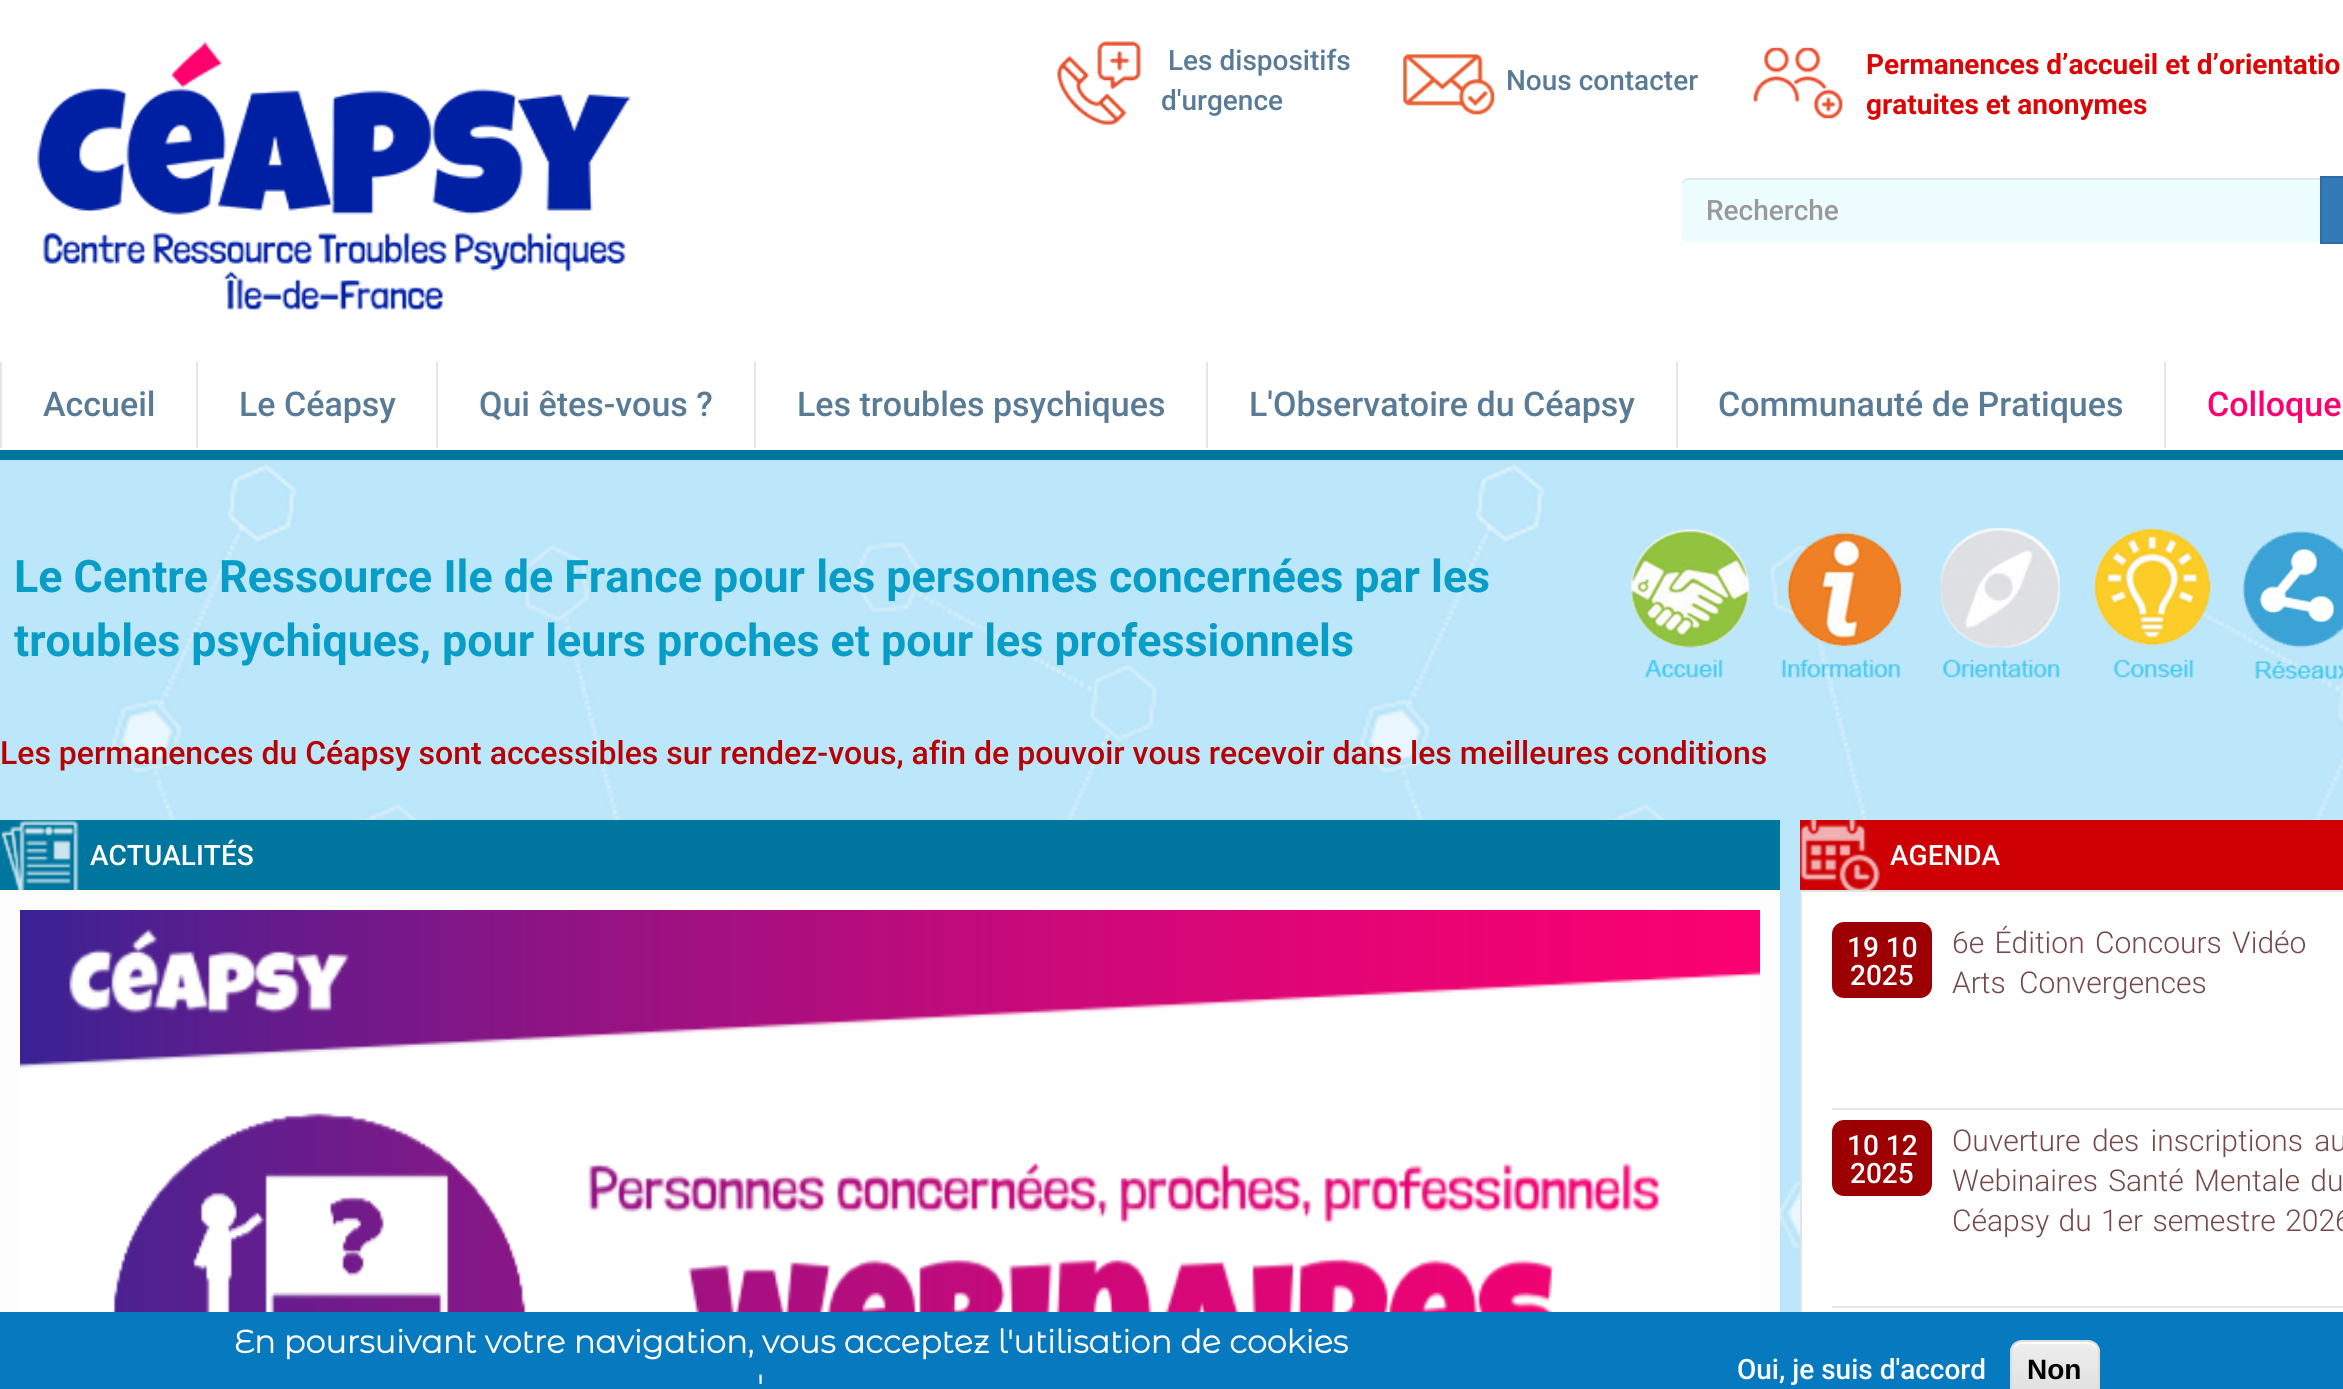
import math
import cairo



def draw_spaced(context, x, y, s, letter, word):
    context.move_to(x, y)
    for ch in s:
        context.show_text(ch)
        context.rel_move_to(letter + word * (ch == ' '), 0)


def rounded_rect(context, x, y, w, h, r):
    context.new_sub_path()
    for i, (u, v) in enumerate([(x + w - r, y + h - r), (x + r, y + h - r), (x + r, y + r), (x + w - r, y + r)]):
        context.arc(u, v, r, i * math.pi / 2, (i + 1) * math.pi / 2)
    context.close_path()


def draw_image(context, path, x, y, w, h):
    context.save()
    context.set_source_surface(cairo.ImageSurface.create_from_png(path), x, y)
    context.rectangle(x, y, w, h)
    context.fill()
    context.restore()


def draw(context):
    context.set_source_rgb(1, 1, 1)
    context.paint()
    context.set_source_rgb(0, 118 / 255, 158 / 255)
    context.rectangle(0, 450, 2343, 10)
    context.fill()
    draw_image(context, "images/1.png", 37, 41, 594, 269)
    draw_image(context, "images/2.png", 1057, 41, 84, 84)
    draw_image(context, "images/3.png", 1403, 54, 92, 61)
    draw_image(context, "images/4.png", 1753, 47, 90, 72)
    context.set_source_rgb(236 / 255, 252 / 255, 1)
    context.new_path()
    context.move_to(1688, 176)
    context.line_to(2322, 176)
    context.line_to(2322, 244)
    context.line_to(1688, 244)
    context.curve_to(1683.5, 244, 1680, 240.5, 1680, 236)
    context.line_to(1680, 184)
    context.curve_to(1680, 179.5, 1683.5, 176, 1688, 176)
    context.close_path()
    context.fill()
    context.set_source_rgb(218 / 255, 233 / 255, 236 / 255)
    context.new_path()
    context.move_to(1688, 180)
    context.line_to(2320, 180)
    context.line_to(2320, 178)
    context.line_to(1688, 178)
    context.curve_to(1683, 178, 1682, 182, 1682, 186)
    context.curve_to(1682, 183, 1685, 180, 1688, 180)
    context.close_path()
    context.fill()
    context.new_path()
    context.move_to(1688, 177)
    context.line_to(2321, 177)
    context.line_to(2321, 243)
    context.line_to(1688, 243)
    context.curve_to(1684, 243, 1681, 240, 1681, 236)
    context.line_to(1681, 184)
    context.curve_to(1681, 180, 1684, 177, 1688, 177)
    context.close_path()
    context.set_source_rgb(1, 1, 1)
    context.stroke()
    context.set_source_rgb(51 / 255, 122 / 255, 183 / 255)
    context.rectangle(2321, 177, 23, 66)
    context.fill_preserve()
    context.set_source_rgb(46 / 255, 109 / 255, 164 / 255)
    context.stroke()
    context.set_source_rgb(229 / 255, 229 / 255, 229 / 255)
    context.rectangle(0, 362, 2, 86)
    context.fill()
    context.rectangle(196, 362, 2, 86)
    context.fill()
    context.rectangle(436, 362, 2, 86)
    context.fill()
    context.rectangle(754, 362, 2, 86)
    context.fill()
    context.rectangle(1206, 362, 2, 86)
    context.fill()
    context.rectangle(1676, 362, 2, 86)
    context.fill()
    context.rectangle(2164, 362, 2, 86)
    context.fill()
    draw_image(context, "images/5.png", 0, 460, 2343, 852)
    draw_image(context, "images/6.png", 1631, 528, 712, 151)
    context.set_source_rgb(0, 118 / 255, 158 / 255)
    context.rectangle(0, 820, 1780, 70)
    context.fill()
    draw_image(context, "images/7.png", 1, 820, 78, 70)
    context.set_source_rgb(253 / 255, 253 / 255, 253 / 255)
    context.rectangle(0, 890, 1780, 422)
    context.fill()
    draw_image(context, "images/8.png", 20, 910, 1740, 402)
    context.set_source_rgb(206 / 255, 0, 3 / 255)
    context.rectangle(1800, 820, 543, 70)
    context.fill()
    draw_image(context, "images/9.png", 1800, 820, 80, 70)
    context.set_source_rgb(1, 1, 1)
    context.rectangle(1802, 892, 541, 420)
    context.fill()
    context.rectangle(1801, 891, 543, 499)
    context.set_source_rgb(227 / 255, 227 / 255, 227 / 255)
    context.stroke()
    context.set_source_rgb(231 / 255, 231 / 255, 231 / 255)
    context.rectangle(1832, 1108, 511, 2)
    context.fill()
    context.set_source_rgb(156 / 255, 0, 2 / 255)
    rounded_rect(context, 1832, 922, 100, 76, 12)
    context.fill()
    context.set_source_rgb(231 / 255, 231 / 255, 231 / 255)
    context.rectangle(1832, 1306, 511, 2)
    context.fill()
    context.set_source_rgb(156 / 255, 0, 2 / 255)
    rounded_rect(context, 1832, 1120, 100, 76, 12)
    context.fill()
    context.set_source_rgb(7 / 255, 121 / 255, 191 / 255)
    context.rectangle(0, 1312, 2343, 77)
    context.fill()
    context.save()
    rounded_rect(context, 2010, 1340, 90, 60, 12)
    context.clip()
    gradient = cairo.LinearGradient(2055, 1342, 2055, 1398)
    gradient.add_color_stop_rgba(0.05, 237 / 255, 237 / 255, 237 / 255, 1)
    gradient.add_color_stop_rgba(1, 223 / 255, 223 / 255, 223 / 255, 1)
    context.set_source(gradient)
    context.rectangle(2010, 1342, 90, 47)
    context.fill()
    context.restore()
    context.set_source_rgb(1, 1, 1)
    context.new_path()
    context.move_to(2022, 1344)
    context.line_to(2088, 1344)
    context.curve_to(2094, 1344, 2098, 1348, 2098, 1354)
    context.curve_to(2098, 1340, 2088, 1342, 2077, 1342)
    context.line_to(2033, 1342)
    context.curve_to(2022, 1342, 2012, 1340, 2012, 1354)
    context.curve_to(2012, 1348, 2016, 1344, 2022, 1344)
    context.close_path()
    context.fill()
    rounded_rect(context, 2011, 1341, 88, 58, 11)
    context.set_source_rgb(220 / 255, 220 / 255, 220 / 255)
    context.stroke()
    context.select_font_face("Roboto Medium")
    context.set_font_size(28)
    context.set_source_rgb(90 / 255, 123 / 255, 150 / 255)
    context.move_to(1168, 70)
    context.show_text("Les dispositifs")
    context.move_to(1161, 110)
    context.show_text("d'urgence")
    context.move_to(1506, 90)
    context.show_text("Nous contacter")
    context.select_font_face("Roboto", cairo.FontSlant.NORMAL, cairo.FontWeight.BOLD)
    context.set_source_rgb(220 / 255, 4 / 255, 4 / 255)
    context.move_to(1866, 74)
    context.show_text("Permanences d’accueil et d’orientatio")
    context.move_to(1866, 114)
    context.show_text("gratuites et anonymes")
    context.select_font_face("Roboto Medium")
    context.set_source_rgb(153 / 255, 153 / 255, 153 / 255)
    context.move_to(1706, 220)
    context.show_text("Recherche")
    context.set_font_size(34)
    context.set_source_rgb(90 / 255, 123 / 255, 150 / 255)
    context.move_to(43, 416)
    context.show_text("Accueil")
    context.move_to(239, 416)
    context.show_text("Le Céapsy")
    context.move_to(479, 416)
    context.show_text("Qui êtes-vous ?")
    context.move_to(797, 416)
    context.show_text("Les troubles psychiques")
    context.move_to(1249, 416)
    context.show_text("L'Observatoire du Céapsy")
    context.move_to(1718, 416)
    context.show_text("Communauté de Pratiques")
    context.set_source_rgb(1, 0, 112 / 255)
    context.move_to(2207, 416)
    context.show_text("Colloque")
    context.select_font_face("Roboto", cairo.FontSlant.NORMAL, cairo.FontWeight.BOLD)
    context.set_font_size(44.8)
    context.set_source_rgb(7 / 255, 157 / 255, 199 / 255)
    context.move_to(14, 592)
    context.show_text("Le Centre Ressource Ile de France pour les personnes concernées par les")
    context.move_to(14, 656)
    context.show_text("troubles psychiques, pour leurs proches et pour les professionnels")
    context.select_font_face("Roboto Medium")
    context.set_font_size(32)
    context.set_source_rgb(183 / 255, 0, 2 / 255)
    context.move_to(0, 764)
    context.show_text("Les permanences du Céapsy sont accessibles sur rendez-vous, afin de pouvoir vous recevoir dans les meilleures conditions")
    context.set_font_size(28)
    context.set_source_rgb(1, 1, 1)
    context.move_to(90, 865)
    context.show_text("ACTUALITÉS")
    context.move_to(1890, 865)
    context.show_text("AGENDA")
    context.move_to(1847, 957)
    context.show_text("19 10")
    context.move_to(1850, 985)
    context.show_text("2025")
    context.select_font_face("Roboto Light")
    context.set_font_size(30)
    context.set_source_rgb(118 / 255, 73 / 255, 73 / 255)
    draw_spaced(context, 1952, 953, "6e Édition Concours Vidéo", 0, 3)
    draw_spaced(context, 1952, 993, "Arts Convergences", 0, 6)
    context.select_font_face("Roboto Medium")
    context.set_font_size(28)
    context.set_source_rgb(1, 1, 1)
    context.move_to(1847, 1155)
    context.show_text("10 12")
    context.move_to(1850, 1183)
    context.show_text("2025")
    context.select_font_face("Roboto Light")
    context.set_font_size(30)
    context.set_source_rgb(118 / 255, 73 / 255, 73 / 255)
    draw_spaced(context, 1952, 1151, "Ouverture des inscriptions au", 0, 4)
    draw_spaced(context, 1952, 1191, "Webinaires Santé Mentale du", 0, 3)
    draw_spaced(context, 1952, 1231, "Céapsy du 1er semestre 2026", 0, 2)
    context.select_font_face("Montserrat Alternates", cairo.FontSlant.NORMAL, cairo.FontWeight.BOLD)
    context.set_font_size(32)
    context.set_source_rgb(1, 1, 1)
    context.move_to(234, 1353)
    context.show_text("En poursuivant votre navigation, vous acceptez l'utilisation de cookies")
    context.move_to(757, 1398)
    context.show_text("'")
    context.select_font_face("Roboto Medium")
    context.set_font_size(28)
    context.move_to(1737, 1379)
    context.show_text("Oui, je suis d'accord")
    context.select_font_face("Liberation Sans", cairo.FontSlant.NORMAL, cairo.FontWeight.BOLD)
    context.set_source_rgb(0, 0, 0)
    context.move_to(2027, 1379)
    context.show_text("Non")


surface = cairo.ImageSurface(cairo.Format.RGB24, 2343, 1389)
context = cairo.Context(surface)
options = cairo.FontOptions()
options.set_hint_metrics(cairo.HintMetrics.OFF)
options.set_hint_style(cairo.HintStyle.NONE)
context.set_font_options(options)
context.set_miter_limit(4)
draw(context)
surface.write_to_png("out.png")
